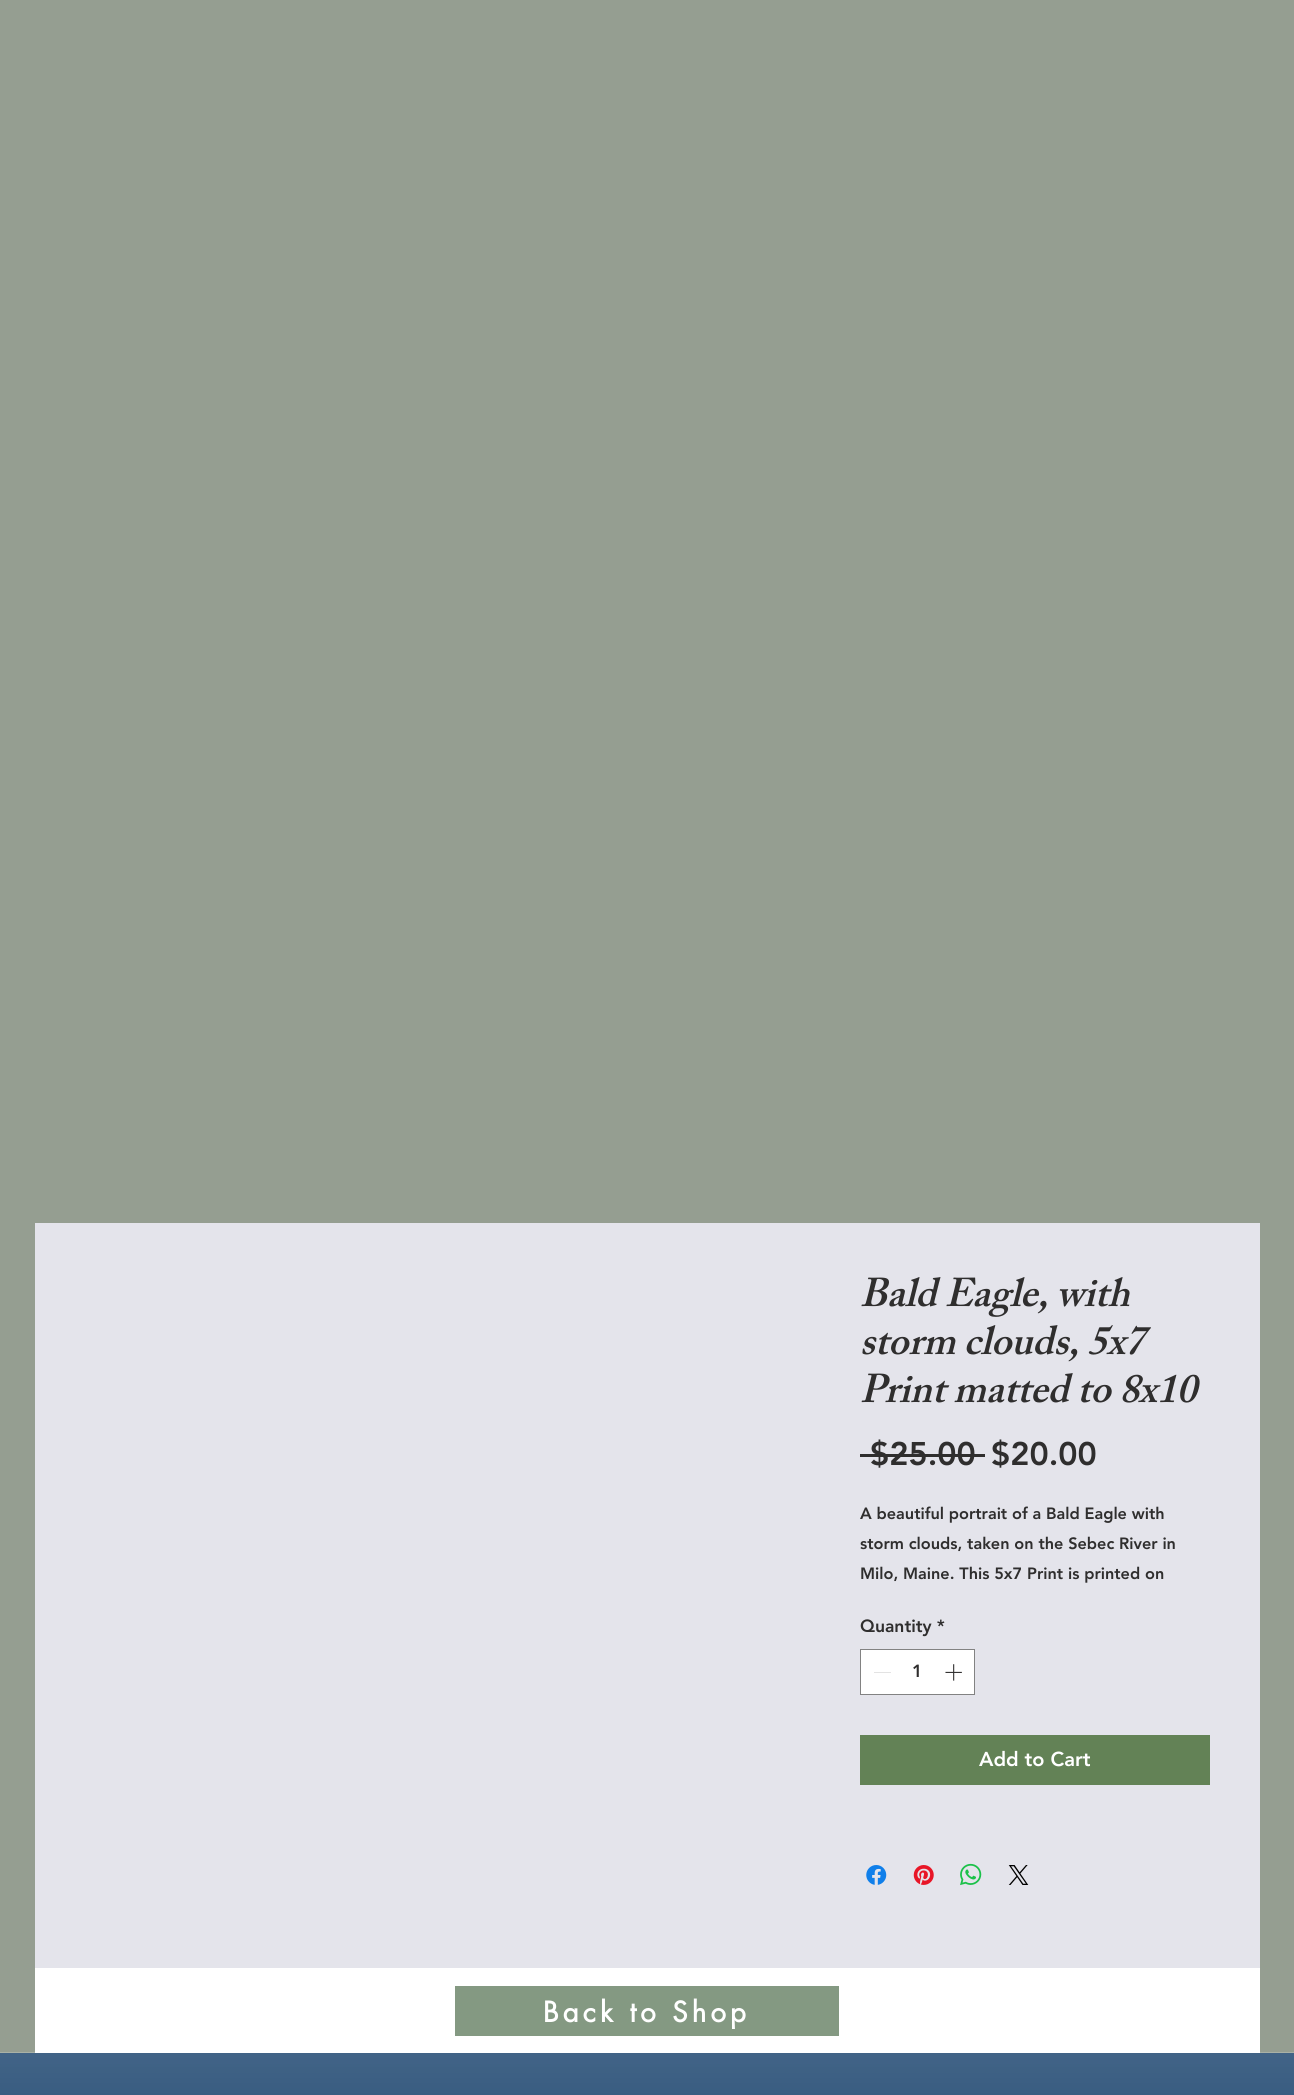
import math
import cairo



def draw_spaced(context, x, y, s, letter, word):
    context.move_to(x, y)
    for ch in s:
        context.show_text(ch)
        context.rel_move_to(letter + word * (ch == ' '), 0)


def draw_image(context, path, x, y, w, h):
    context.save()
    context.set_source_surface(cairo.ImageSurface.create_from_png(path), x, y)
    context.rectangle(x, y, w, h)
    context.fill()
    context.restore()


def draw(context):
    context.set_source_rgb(149 / 255, 158 / 255, 145 / 255)
    context.paint()
    context.set_source_rgb(228 / 255, 228 / 255, 235 / 255)
    context.rectangle(35, 1223, 1225, 745)
    context.fill()
    context.set_source_rgb(47 / 255, 46 / 255, 46 / 255)
    context.rectangle(860, 1454, 125, 3)
    context.fill()
    context.set_source_rgb(1, 1, 1)
    context.rectangle(860.5, 1649.5, 114, 45)
    context.fill_preserve()
    context.set_source_rgb(130 / 255, 130 / 255, 130 / 255)
    context.set_line_width(1)
    context.stroke()
    context.set_source_rgb(227 / 255, 227 / 255, 227 / 255)
    context.rectangle(874, 1672, 17, 1)
    context.fill()
    draw_image(context, "images/1.png", 945, 1664, 17, 17)
    context.set_source_rgb(99 / 255, 130 / 255, 86 / 255)
    context.rectangle(860, 1735, 350, 50)
    context.fill()
    draw_image(context, "images/2.png", 866, 1865, 21, 20)
    draw_image(context, "images/3.png", 913, 1865, 21, 20)
    draw_image(context, "images/4.png", 960, 1863, 22, 23)
    draw_image(context, "images/5.png", 1008, 1865, 21, 20)
    context.set_source_rgb(1, 1, 1)
    context.rectangle(35, 1968, 1225, 85)
    context.fill()
    context.set_source_rgb(132 / 255, 153 / 255, 130 / 255)
    context.rectangle(455, 1986, 384, 50)
    context.fill()
    context.set_source_rgb(0, 46 / 255, 93 / 255)
    context.rectangle(0, 2053, 1294, 42)
    context.fill()
    draw_image(context, "images/6.png", 0, 2052, 1294, 43)
    context.select_font_face("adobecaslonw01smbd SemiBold", cairo.FontSlant.ITALIC)
    context.set_font_size(40)
    context.set_source_rgb(47 / 255, 46 / 255, 46 / 255)
    context.move_to(860, 1306)
    context.show_text("Bald Eagle, with")
    context.move_to(860, 1354)
    context.show_text("storm clouds, 5x7")
    context.move_to(860, 1402)
    context.show_text("Print matted to 8x10")
    context.select_font_face("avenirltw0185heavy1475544 Black")
    context.set_font_size(32.5)
    context.move_to(870, 1465)
    context.show_text("$25.00")
    context.move_to(991, 1465)
    context.show_text("$20.00")
    context.set_font_size(16.25)
    context.move_to(860, 1519)
    context.show_text("A beautiful portrait of a Bald Eagle with")
    context.move_to(860, 1549)
    context.show_text("storm clouds, taken on the Sebec River in")
    context.move_to(860, 1579)
    context.show_text("Milo, Maine. This 5x7 Print is printed on")
    context.set_font_size(17.5)
    context.move_to(860, 1632)
    context.show_text("Quantity *")
    context.move_to(912, 1677)
    context.show_text("1")
    context.set_font_size(20)
    context.set_source_rgb(1, 1, 1)
    context.move_to(979, 1766)
    context.show_text("Add to Cart")
    context.save()
    context.rectangle(544, 1993, 206, 36)
    context.clip()
    context.select_font_face("futura", cairo.FontSlant.NORMAL, cairo.FontWeight.BOLD)
    context.set_font_size(27.5)
    draw_spaced(context, 543, 2022, "Back to Shop", 4.1, 0)
    context.restore()


surface = cairo.ImageSurface(cairo.Format.RGB24, 1294, 2095)
context = cairo.Context(surface)
options = cairo.FontOptions()
options.set_hint_metrics(cairo.HintMetrics.OFF)
options.set_hint_style(cairo.HintStyle.NONE)
context.set_font_options(options)
context.set_miter_limit(4)
draw(context)
surface.write_to_png("out.png")
